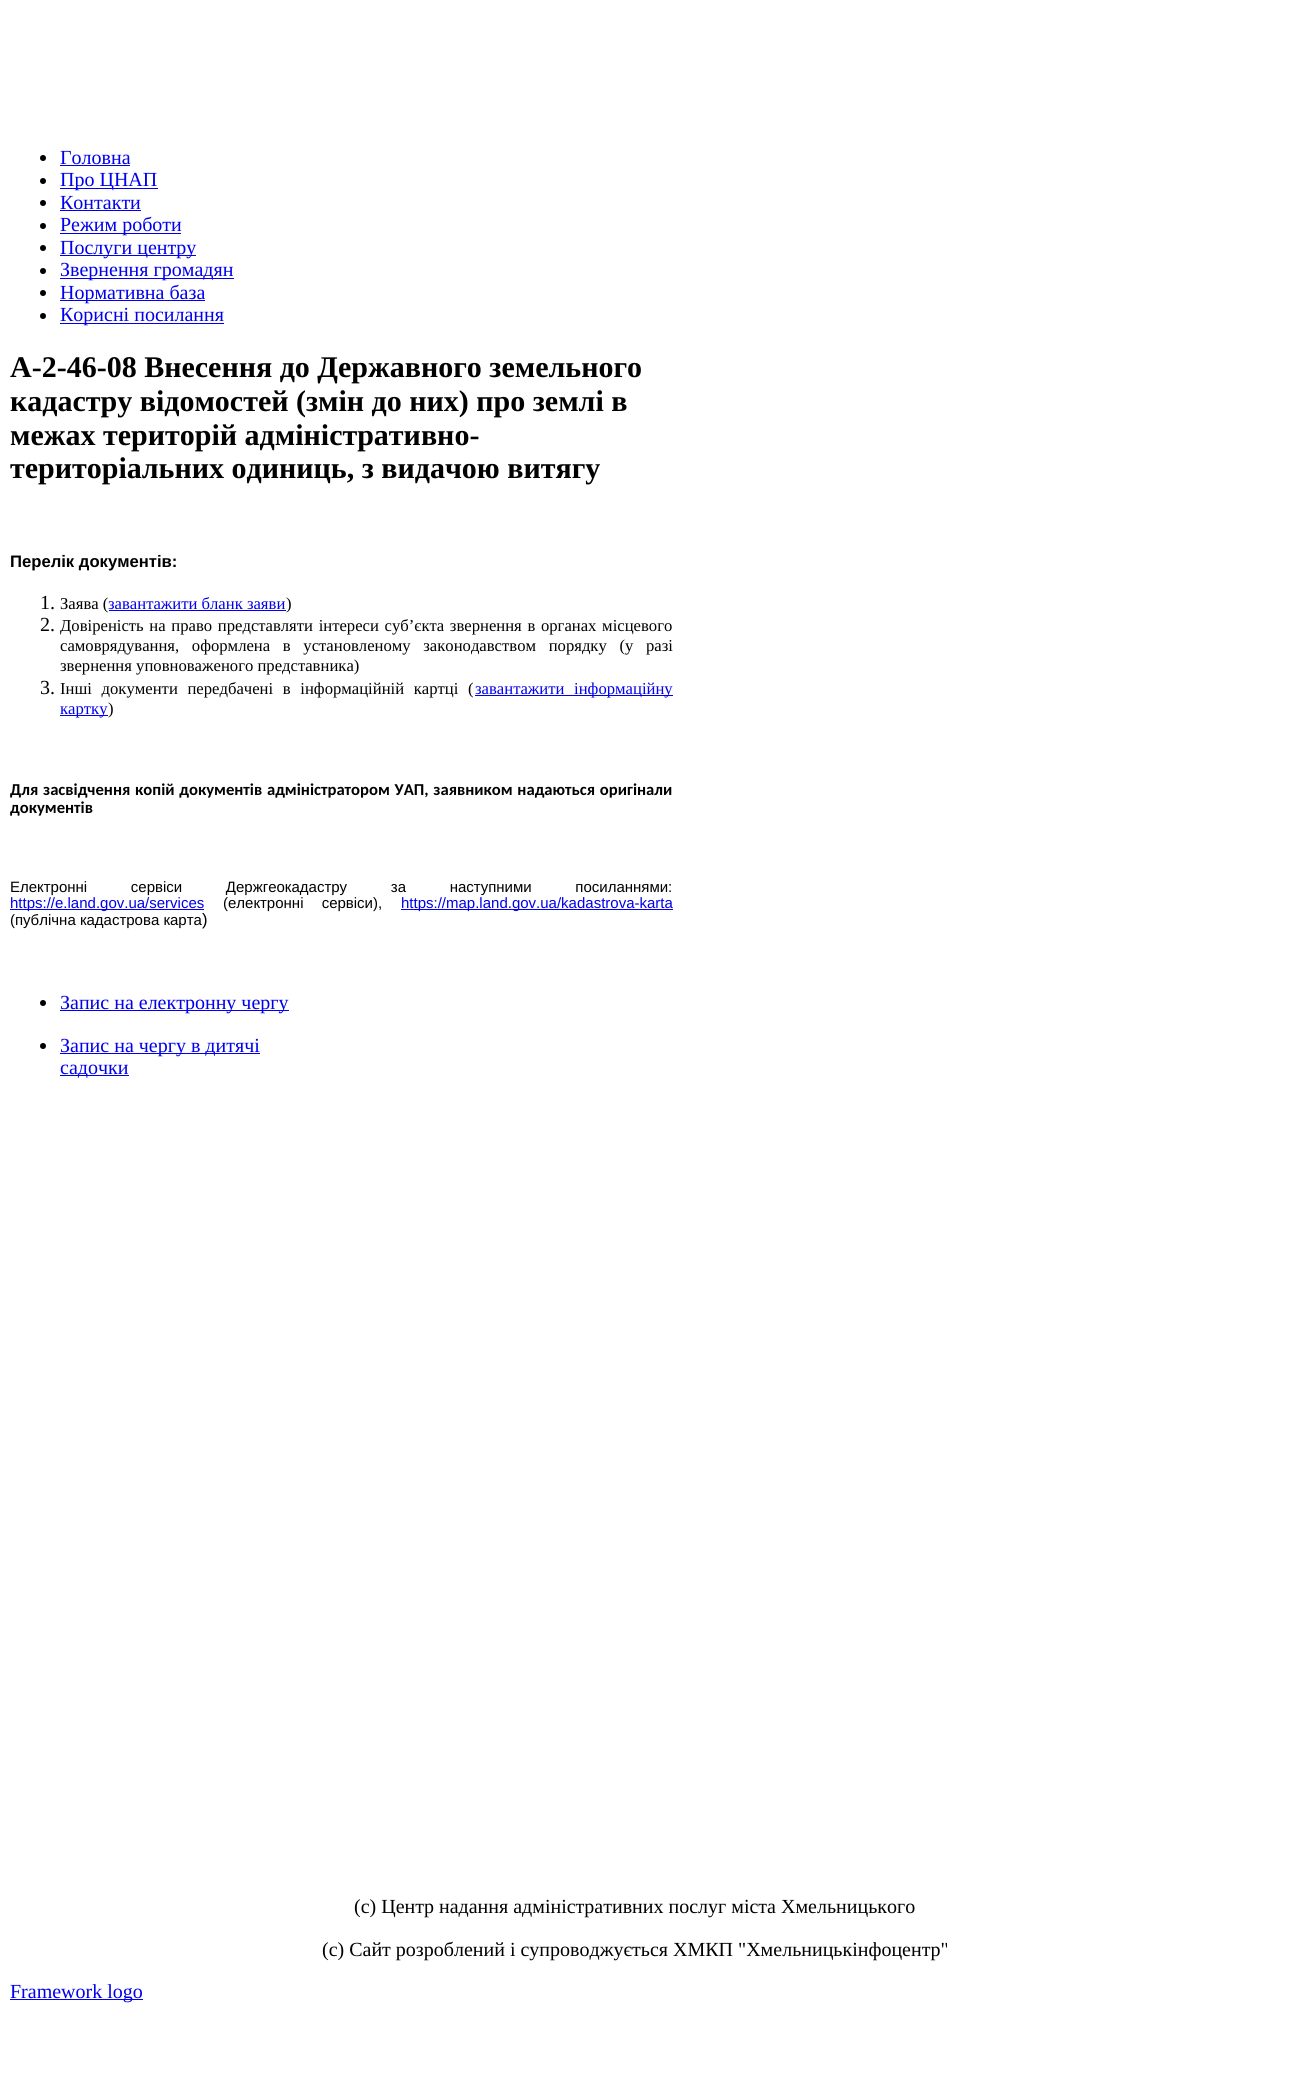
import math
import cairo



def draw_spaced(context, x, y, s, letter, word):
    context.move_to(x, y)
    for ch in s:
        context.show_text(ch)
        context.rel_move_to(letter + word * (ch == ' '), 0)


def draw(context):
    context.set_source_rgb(1, 1, 1)
    context.paint()
    context.set_source_rgb(0, 0, 0)
    context.arc(43, 158, 3, 0, 2 * math.pi)
    context.fill()
    context.set_source_rgb(0, 0, 238 / 255)
    context.rectangle(60, 165, 70, 1)
    context.fill()
    context.set_source_rgb(0, 0, 0)
    context.arc(43, 181, 3, 0, 2 * math.pi)
    context.fill()
    context.set_source_rgb(0, 0, 238 / 255)
    context.rectangle(60, 188, 98, 1)
    context.fill()
    context.set_source_rgb(0, 0, 0)
    context.arc(43, 203, 3, 0, 2 * math.pi)
    context.fill()
    context.set_source_rgb(0, 0, 238 / 255)
    context.rectangle(60, 210, 81, 1)
    context.fill()
    context.set_source_rgb(0, 0, 0)
    context.arc(43, 226, 3, 0, 2 * math.pi)
    context.fill()
    context.set_source_rgb(0, 0, 238 / 255)
    context.rectangle(60, 233, 121, 1)
    context.fill()
    context.set_source_rgb(0, 0, 0)
    context.arc(43, 248, 3, 0, 2 * math.pi)
    context.fill()
    context.set_source_rgb(0, 0, 238 / 255)
    context.rectangle(60, 255, 136, 1)
    context.fill()
    context.set_source_rgb(0, 0, 0)
    context.arc(43, 271, 3, 0, 2 * math.pi)
    context.fill()
    context.set_source_rgb(0, 0, 238 / 255)
    context.rectangle(60, 278, 174, 1)
    context.fill()
    context.set_source_rgb(0, 0, 0)
    context.arc(43, 293, 3, 0, 2 * math.pi)
    context.fill()
    context.set_source_rgb(0, 0, 238 / 255)
    context.rectangle(60, 300, 145, 1)
    context.fill()
    context.set_source_rgb(0, 0, 0)
    context.arc(43, 316, 3, 0, 2 * math.pi)
    context.fill()
    context.set_source_rgb(0, 0, 238 / 255)
    context.rectangle(60, 323, 164, 1)
    context.fill()
    context.rectangle(109, 610, 177, 1)
    context.fill()
    context.rectangle(475, 695, 198, 1)
    context.fill()
    context.rectangle(60, 715, 48, 1)
    context.fill()
    context.rectangle(10, 909, 194, 1)
    context.fill()
    context.rectangle(401, 909, 272, 1)
    context.fill()
    context.set_source_rgb(0, 0, 0)
    context.arc(43, 1003, 3, 0, 2 * math.pi)
    context.fill()
    context.set_source_rgb(0, 0, 238 / 255)
    context.rectangle(60, 1010, 229, 1)
    context.fill()
    context.set_source_rgb(0, 0, 0)
    context.arc(43, 1046, 3, 0, 2 * math.pi)
    context.fill()
    context.set_source_rgb(0, 0, 238 / 255)
    context.rectangle(60, 1053, 200, 1)
    context.fill()
    context.rectangle(60, 1075, 69, 1)
    context.fill()
    context.rectangle(10, 1999, 133, 1)
    context.fill()
    context.select_font_face("Liberation Serif")
    context.set_font_size(20)
    context.move_to(60, 164)
    context.show_text("Головна")
    context.move_to(60, 186)
    context.show_text("Про ЦНАП")
    context.move_to(60, 209)
    context.show_text("Контакти")
    context.move_to(60, 231)
    context.show_text("Режим роботи")
    context.move_to(60, 254)
    context.show_text("Послуги центру")
    context.move_to(60, 276)
    context.show_text("Звернення громадян")
    context.move_to(60, 299)
    context.show_text("Нормативна база")
    context.move_to(60, 321)
    context.show_text("Корисні посилання")
    context.select_font_face("Liberation Serif", cairo.FontSlant.NORMAL, cairo.FontWeight.BOLD)
    context.set_font_size(30)
    context.set_source_rgb(0, 0, 0)
    context.move_to(10, 377)
    context.show_text("А-2-46-08 Внесення до Державного земельного")
    context.move_to(10, 411)
    context.show_text("кадастру відомостей (змін до них) про землі в")
    context.move_to(10, 445)
    context.show_text("межах територій адміністративно-")
    context.move_to(10, 478)
    context.show_text("територіальних одиниць, з видачою витягу")
    context.select_font_face("Liberation Sans", cairo.FontSlant.NORMAL, cairo.FontWeight.BOLD)
    context.set_font_size(16.65)
    context.move_to(10, 567)
    context.show_text("Перелік документів:")
    context.select_font_face("Liberation Serif")
    context.set_font_size(20)
    context.move_to(40, 609)
    context.show_text("1.")
    context.set_font_size(16.65)
    context.move_to(60, 609)
    context.show_text("Заява (")
    context.set_source_rgb(0, 0, 238 / 255)
    context.move_to(108, 609)
    context.show_text("завантажити бланк заяви")
    context.set_source_rgb(0, 0, 0)
    context.move_to(286, 609)
    context.show_text(")")
    context.set_font_size(20)
    context.move_to(40, 631)
    context.show_text("2.")
    context.set_font_size(16.65)
    draw_spaced(context, 60, 631, "Довіреність на право представляти інтереси суб’єкта звернення в органах місцевого", 0, 1.5)
    draw_spaced(context, 60, 651, "самоврядування, оформлена в установленому законодавством порядку (у разі", 0, 8.5)
    context.move_to(60, 671)
    context.show_text("звернення уповноваженого представника)")
    context.set_font_size(20)
    context.move_to(40, 694)
    context.show_text("3.")
    context.set_font_size(16.65)
    draw_spaced(context, 60, 694, "Інші документи передбачені в інформаційній картці (", 0, 5.5)
    context.set_source_rgb(0, 0, 238 / 255)
    draw_spaced(context, 475, 694, "завантажити інформаційну", 0, 5.5)
    context.move_to(60, 714)
    context.show_text("картку")
    context.set_source_rgb(0, 0, 0)
    context.move_to(108, 714)
    context.show_text(")")
    context.select_font_face("Carlito", cairo.FontSlant.NORMAL, cairo.FontWeight.BOLD)
    draw_spaced(context, 10, 795, "Для засвідчення копій документів адміністратором УАП, заявником надаються оригінали", 0, 1)
    context.move_to(10, 813)
    context.show_text("документів")
    context.select_font_face("Liberation Sans")
    context.set_font_size(15)
    draw_spaced(context, 10, 892, "Електронні сервіси Держгеокадастру за наступними посиланнями:", 0, 39.5)
    context.set_source_rgb(0, 0, 238 / 255)
    context.move_to(10, 908)
    context.show_text("https://e.land.gov.ua/services")
    context.set_source_rgb(0, 0, 0)
    draw_spaced(context, 223, 908, "(електронні сервіси),", 0, 14)
    context.set_source_rgb(0, 0, 238 / 255)
    context.move_to(401, 908)
    context.show_text("https://map.land.gov.ua/kadastrova-karta")
    context.set_source_rgb(0, 0, 0)
    context.move_to(10, 925)
    context.show_text("(публічна кадастрова карта")
    context.set_font_size(16.65)
    context.move_to(202, 925)
    context.show_text(")")
    context.select_font_face("Liberation Serif")
    context.set_font_size(20)
    context.set_source_rgb(0, 0, 238 / 255)
    context.move_to(60, 1009)
    context.show_text("Запис на електронну чергу")
    context.move_to(60, 1052)
    context.show_text("Запис на чергу в дитячі")
    context.move_to(60, 1074)
    context.show_text("садочки")
    context.set_source_rgb(0, 0, 0)
    context.move_to(354, 1913)
    context.show_text("(с) Центр надання адміністративних послуг міста Хмельницького")
    context.move_to(322, 1956)
    context.show_text("(с) Сайт розроблений і супроводжується ХМКП \"Хмельницькінфоцентр\"")
    context.set_source_rgb(0, 0, 238 / 255)
    context.move_to(10, 1998)
    context.show_text("Framework logo")


surface = cairo.ImageSurface(cairo.Format.RGB24, 1299, 2099)
context = cairo.Context(surface)
options = cairo.FontOptions()
options.set_hint_metrics(cairo.HintMetrics.OFF)
options.set_hint_style(cairo.HintStyle.NONE)
context.set_font_options(options)
context.set_miter_limit(4)
draw(context)
surface.write_to_png("out.png")
